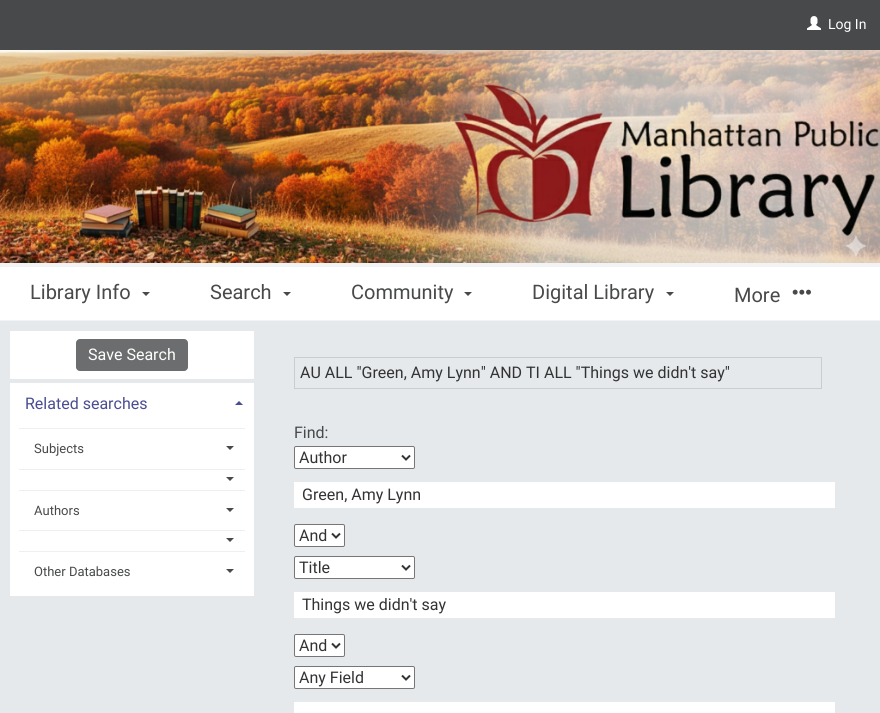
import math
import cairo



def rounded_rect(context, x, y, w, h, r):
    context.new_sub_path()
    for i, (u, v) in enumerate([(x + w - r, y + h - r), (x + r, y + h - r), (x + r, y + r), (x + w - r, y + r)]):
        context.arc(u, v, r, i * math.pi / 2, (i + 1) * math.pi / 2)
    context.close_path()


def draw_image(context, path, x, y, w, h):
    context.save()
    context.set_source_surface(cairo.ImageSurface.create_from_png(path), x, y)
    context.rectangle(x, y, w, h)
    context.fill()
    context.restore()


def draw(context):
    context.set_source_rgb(72 / 255, 73 / 255, 74 / 255)
    context.paint()
    context.set_source_rgb(241 / 255, 243 / 255, 245 / 255)
    context.rectangle(0, 320, 880, 1)
    context.fill()
    draw_image(context, "images/1.png", 807, 16, 14, 14)
    draw_image(context, "images/2.png", 0, 50, 880, 213)
    context.set_source_rgb(1, 1, 1)
    context.rectangle(0, 267, 880, 53)
    context.fill()
    context.set_source_rgb(241 / 255, 243 / 255, 245 / 255)
    context.rectangle(0, 263, 880, 4)
    context.fill()
    context.set_source_rgb(72 / 255, 73 / 255, 74 / 255)
    context.new_path()
    context.move_to(142, 292)
    context.line_to(150, 292)
    context.line_to(146, 296)
    context.close_path()
    context.fill()
    context.new_path()
    context.move_to(283, 292)
    context.line_to(291, 292)
    context.line_to(287, 296)
    context.close_path()
    context.fill()
    context.new_path()
    context.move_to(464, 292)
    context.line_to(472, 292)
    context.line_to(468, 296)
    context.close_path()
    context.fill()
    context.new_path()
    context.move_to(666, 292)
    context.line_to(674, 292)
    context.line_to(670, 296)
    context.close_path()
    context.fill()
    draw_image(context, "images/3.png", 792, 289, 19, 6)
    context.set_source_rgb(229 / 255, 233 / 255, 236 / 255)
    context.rectangle(0, 321, 880, 392)
    context.fill()
    context.set_source_rgb(1, 1, 1)
    context.rectangle(10, 331, 244, 48)
    context.fill()
    context.set_source_rgb(108 / 255, 109 / 255, 110 / 255)
    rounded_rect(context, 76, 339, 112, 32, 4)
    context.fill()
    context.set_source_rgb(1, 1, 1)
    context.rectangle(10, 383, 244, 213)
    context.fill()
    context.set_source_rgb(74 / 255, 77 / 255, 145 / 255)
    context.new_path()
    context.move_to(243, 405)
    context.line_to(235, 405)
    context.line_to(239, 401)
    context.close_path()
    context.fill()
    context.set_source_rgb(239 / 255, 239 / 255, 239 / 255)
    context.rectangle(19, 428, 226, 1)
    context.fill()
    context.set_source_rgb(72 / 255, 73 / 255, 74 / 255)
    context.new_path()
    context.move_to(226, 446)
    context.line_to(234, 446)
    context.line_to(230, 450)
    context.close_path()
    context.fill()
    context.set_source_rgb(239 / 255, 239 / 255, 239 / 255)
    context.rectangle(19, 469, 226, 1)
    context.fill()
    context.set_source_rgb(72 / 255, 73 / 255, 74 / 255)
    context.new_path()
    context.move_to(226, 477)
    context.line_to(234, 477)
    context.line_to(230, 481)
    context.close_path()
    context.fill()
    context.set_source_rgb(239 / 255, 239 / 255, 239 / 255)
    context.rectangle(19, 490, 226, 1)
    context.fill()
    context.set_source_rgb(72 / 255, 73 / 255, 74 / 255)
    context.new_path()
    context.move_to(226, 508)
    context.line_to(234, 508)
    context.line_to(230, 512)
    context.close_path()
    context.fill()
    context.set_source_rgb(239 / 255, 239 / 255, 239 / 255)
    context.rectangle(19, 530, 226, 1)
    context.fill()
    context.set_source_rgb(72 / 255, 73 / 255, 74 / 255)
    context.new_path()
    context.move_to(226, 538)
    context.line_to(234, 538)
    context.line_to(230, 542)
    context.close_path()
    context.fill()
    context.set_source_rgb(239 / 255, 239 / 255, 239 / 255)
    context.rectangle(19, 551, 226, 1)
    context.fill()
    context.set_source_rgb(72 / 255, 73 / 255, 74 / 255)
    context.new_path()
    context.move_to(226, 569)
    context.line_to(234, 569)
    context.line_to(230, 573)
    context.close_path()
    context.fill()
    context.rectangle(294.5, 357.5, 527, 31)
    context.set_source_rgb(204 / 255, 204 / 255, 204 / 255)
    context.set_line_width(1)
    context.stroke()
    context.set_source_rgb(1, 1, 1)
    rounded_rect(context, 294.5, 446.5, 120, 22, 1.5)
    context.fill_preserve()
    context.set_source_rgb(118 / 255, 118 / 255, 118 / 255)
    context.stroke()
    context.new_path()
    context.move_to(402, 455.5)
    context.line_to(406, 459.5)
    context.line_to(410, 455.5)
    context.set_source_rgb(51 / 255, 51 / 255, 51 / 255)
    context.set_line_width(2)
    context.stroke()
    context.set_source_rgb(1, 1, 1)
    context.rectangle(294, 482, 541, 26)
    context.fill()
    rounded_rect(context, 294.5, 524.5, 50, 22, 1.5)
    context.fill_preserve()
    context.set_source_rgb(118 / 255, 118 / 255, 118 / 255)
    context.set_line_width(1)
    context.stroke()
    context.new_path()
    context.move_to(332, 533.5)
    context.line_to(336, 537.5)
    context.line_to(340, 533.5)
    context.set_source_rgb(51 / 255, 51 / 255, 51 / 255)
    context.set_line_width(2)
    context.stroke()
    context.set_source_rgb(1, 1, 1)
    rounded_rect(context, 294.5, 556.5, 120, 22, 1.5)
    context.fill_preserve()
    context.set_source_rgb(118 / 255, 118 / 255, 118 / 255)
    context.set_line_width(1)
    context.stroke()
    context.new_path()
    context.move_to(402, 565.5)
    context.line_to(406, 569.5)
    context.line_to(410, 565.5)
    context.set_source_rgb(51 / 255, 51 / 255, 51 / 255)
    context.set_line_width(2)
    context.stroke()
    context.set_source_rgb(1, 1, 1)
    context.rectangle(294, 592, 541, 26)
    context.fill()
    rounded_rect(context, 294.5, 634.5, 50, 22, 1.5)
    context.fill_preserve()
    context.set_source_rgb(118 / 255, 118 / 255, 118 / 255)
    context.set_line_width(1)
    context.stroke()
    context.new_path()
    context.move_to(332, 643.5)
    context.line_to(336, 647.5)
    context.line_to(340, 643.5)
    context.set_source_rgb(51 / 255, 51 / 255, 51 / 255)
    context.set_line_width(2)
    context.stroke()
    context.set_source_rgb(1, 1, 1)
    rounded_rect(context, 294.5, 666.5, 120, 22, 1.5)
    context.fill_preserve()
    context.set_source_rgb(118 / 255, 118 / 255, 118 / 255)
    context.set_line_width(1)
    context.stroke()
    context.new_path()
    context.move_to(402, 675.5)
    context.line_to(406, 679.5)
    context.line_to(410, 675.5)
    context.set_source_rgb(51 / 255, 51 / 255, 51 / 255)
    context.set_line_width(2)
    context.stroke()
    context.set_source_rgb(1, 1, 1)
    context.rectangle(294, 702, 541, 11)
    context.fill()
    context.select_font_face("Roboto")
    context.set_font_size(14)
    context.move_to(828, 29)
    context.show_text("Log In")
    context.set_font_size(20)
    context.set_source_rgb(72 / 255, 73 / 255, 74 / 255)
    context.move_to(30, 299)
    context.show_text("Library Info")
    context.move_to(210, 299)
    context.show_text("Search")
    context.move_to(351, 299)
    context.show_text("Community")
    context.move_to(532, 299)
    context.show_text("Digital Library")
    context.move_to(734, 302)
    context.show_text("More")
    context.set_font_size(16)
    context.set_source_rgb(1, 1, 1)
    context.move_to(88, 360)
    context.show_text("Save Search")
    context.set_source_rgb(74 / 255, 77 / 255, 145 / 255)
    context.move_to(25, 409)
    context.show_text("Related searches")
    context.set_font_size(13)
    context.set_source_rgb(72 / 255, 73 / 255, 74 / 255)
    context.move_to(34, 453)
    context.show_text("Subjects")
    context.move_to(34, 515)
    context.show_text("Authors")
    context.move_to(34, 576)
    context.show_text("Other Databases")
    context.set_font_size(16)
    context.set_source_rgb(51 / 255, 51 / 255, 51 / 255)
    context.move_to(300, 378)
    context.show_text("AU ALL \"Green, Amy Lynn\" AND TI ALL \"Things we didn't say\"")
    context.set_source_rgb(72 / 255, 73 / 255, 74 / 255)
    context.move_to(294, 438)
    context.show_text("Find:")
    context.set_source_rgb(51 / 255, 51 / 255, 51 / 255)
    context.move_to(299, 463)
    context.show_text("Author")
    context.move_to(302, 500)
    context.show_text("Green, Amy Lynn")
    context.move_to(299, 541)
    context.show_text("And")
    context.move_to(299, 573)
    context.show_text("Title")
    context.move_to(302, 610)
    context.show_text("Things we didn't say")
    context.move_to(299, 651)
    context.show_text("And")
    context.move_to(299, 683)
    context.show_text("Any Field")


surface = cairo.ImageSurface(cairo.Format.RGB24, 880, 713)
context = cairo.Context(surface)
options = cairo.FontOptions()
options.set_hint_metrics(cairo.HintMetrics.OFF)
options.set_hint_style(cairo.HintStyle.NONE)
context.set_font_options(options)
context.set_miter_limit(4)
draw(context)
surface.write_to_png("out.png")
